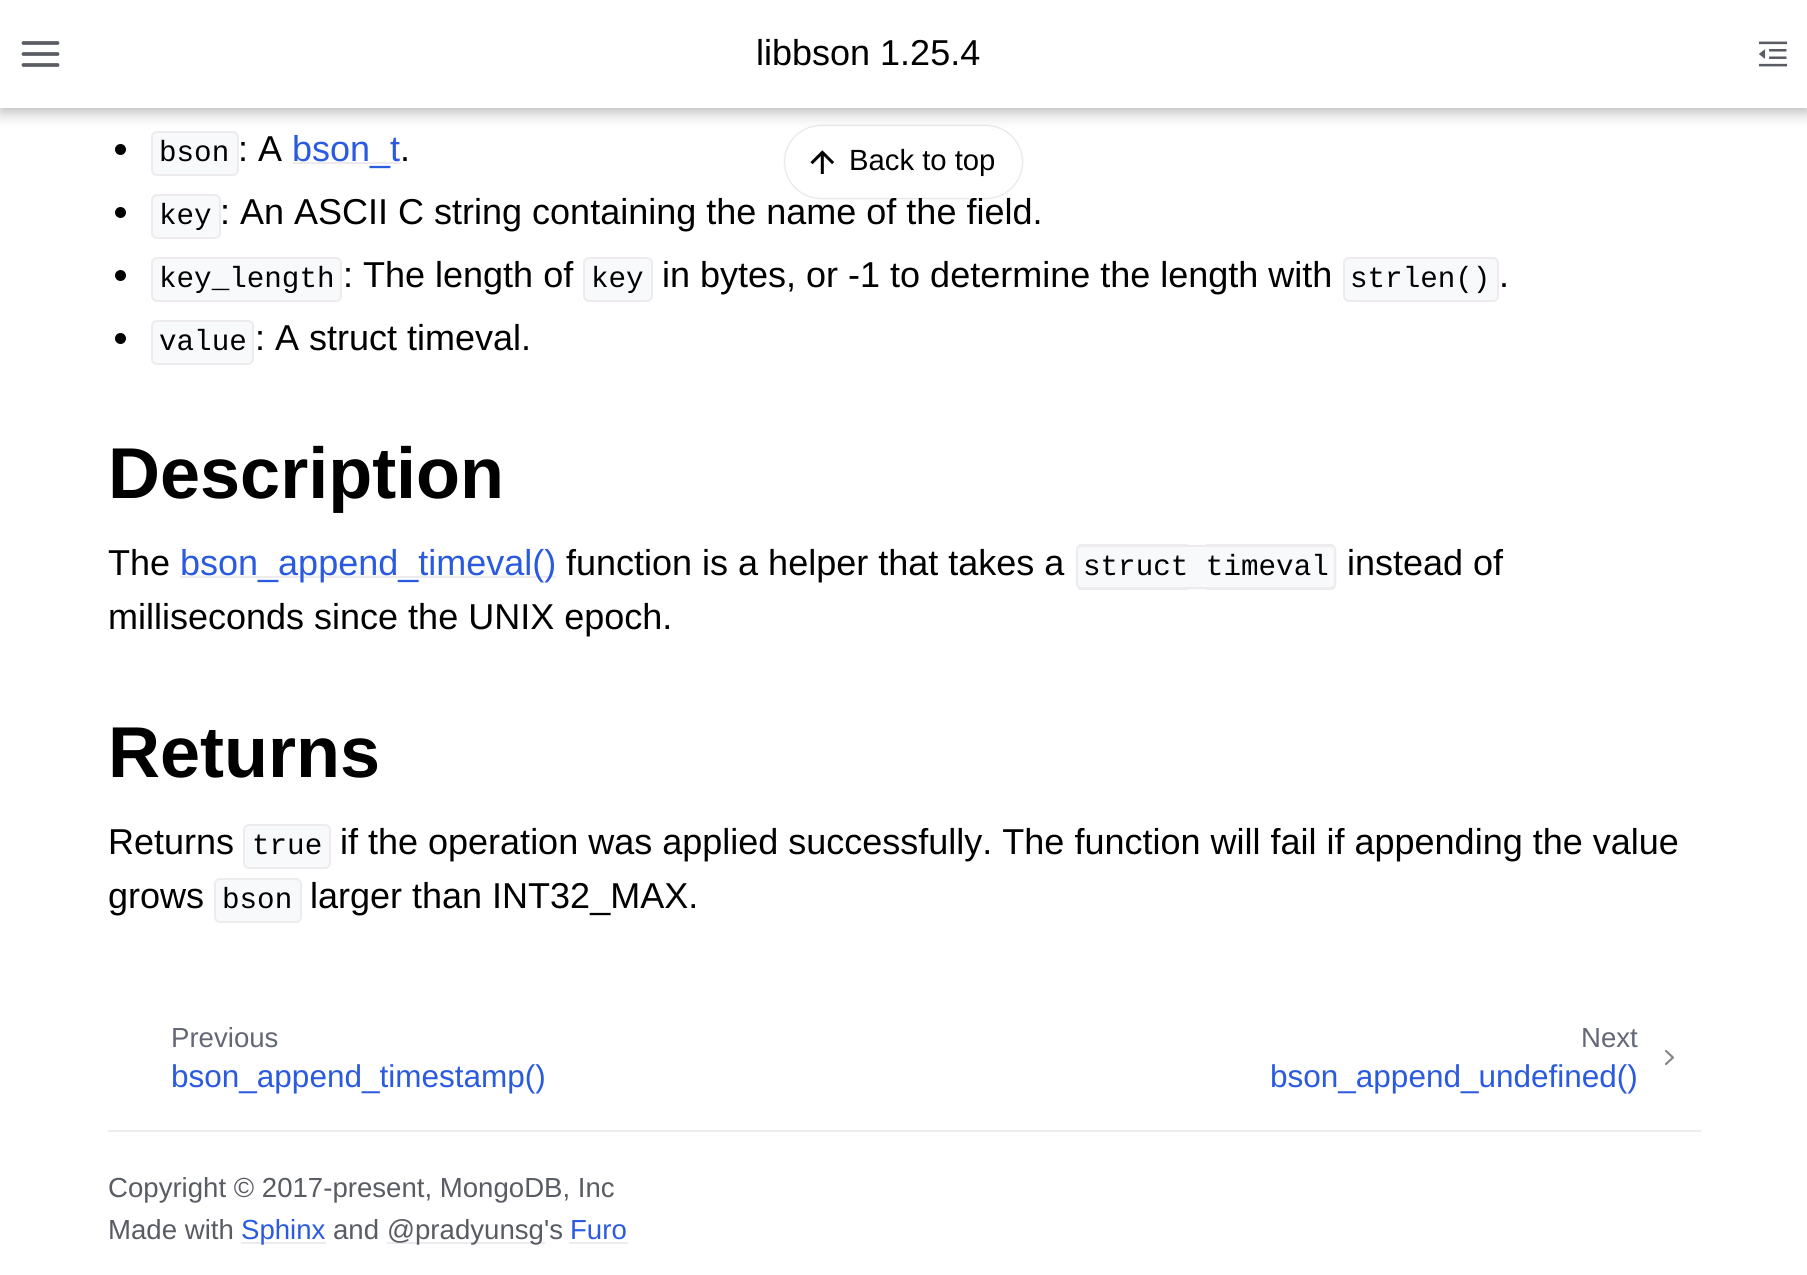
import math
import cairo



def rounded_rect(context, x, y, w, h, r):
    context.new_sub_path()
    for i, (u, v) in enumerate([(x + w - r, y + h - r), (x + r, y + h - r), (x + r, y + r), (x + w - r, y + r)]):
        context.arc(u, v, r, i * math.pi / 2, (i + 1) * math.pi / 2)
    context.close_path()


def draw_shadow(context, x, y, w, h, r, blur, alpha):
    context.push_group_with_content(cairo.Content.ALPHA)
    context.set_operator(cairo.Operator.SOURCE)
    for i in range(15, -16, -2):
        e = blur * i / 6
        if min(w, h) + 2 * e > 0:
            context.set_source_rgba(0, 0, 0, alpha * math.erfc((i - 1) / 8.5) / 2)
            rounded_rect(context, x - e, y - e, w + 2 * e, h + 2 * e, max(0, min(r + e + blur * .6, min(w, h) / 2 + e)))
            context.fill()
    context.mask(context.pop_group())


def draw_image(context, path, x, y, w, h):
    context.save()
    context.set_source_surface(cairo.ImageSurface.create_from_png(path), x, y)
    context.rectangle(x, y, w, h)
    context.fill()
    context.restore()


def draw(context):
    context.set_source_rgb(1, 1, 1)
    context.paint()
    context.set_source_rgb(248 / 255, 249 / 255, 251 / 255)
    rounded_rect(context, 152, 132, 86, 43, 5)
    context.fill_preserve()
    context.set_source_rgb(238 / 255, 235 / 255, 238 / 255)
    context.stroke()
    context.set_source_rgb(0, 0, 0)
    draw_shadow(context, 0, 7, 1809, 108, 0, 7, 0.2)
    draw_shadow(context, 0, 0, 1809, 108, 0, 3.5, 0.1)
    context.set_source_rgb(1, 1, 1)
    context.rectangle(0, 0, 1807, 108)
    context.fill()
    context.new_path()
    context.move_to(23.5, 54)
    context.line_to(57.5, 54)
    context.move_to(23.5, 43)
    context.line_to(57.5, 43)
    context.move_to(23.5, 65)
    context.line_to(57.5, 65)
    context.set_source_rgb(90 / 255, 92 / 255, 99 / 255)
    context.set_line_width(3.8)
    context.set_line_cap(cairo.LineCap.ROUND)
    context.set_line_join(cairo.LineJoin.ROUND)
    context.stroke()
    draw_image(context, "images/1.png", 1758, 41, 30, 26)
    context.set_source_rgb(0, 0, 0)
    context.arc(120.5, 149.5, 5.5, 0, 2 * math.pi)
    context.fill()
    context.set_source_rgb(238 / 255, 235 / 255, 238 / 255)
    context.rectangle(293, 162, 108, 2)
    context.fill()
    context.set_source_rgb(0, 0, 0)
    context.arc(120.5, 212.5, 5.5, 0, 2 * math.pi)
    context.fill()
    context.set_source_rgb(248 / 255, 249 / 255, 251 / 255)
    rounded_rect(context, 152, 195, 68, 43, 5)
    context.fill_preserve()
    context.set_source_rgb(238 / 255, 235 / 255, 238 / 255)
    context.set_line_width(2)
    context.set_line_cap(cairo.LineCap.BUTT)
    context.set_line_join(cairo.LineJoin.MITER)
    context.stroke()
    context.set_source_rgb(0, 0, 0)
    context.arc(120.5, 275.5, 5.5, 0, 2 * math.pi)
    context.fill()
    context.set_source_rgb(248 / 255, 249 / 255, 251 / 255)
    rounded_rect(context, 152, 258, 189, 43, 5)
    context.fill_preserve()
    context.set_source_rgb(238 / 255, 235 / 255, 238 / 255)
    context.stroke()
    context.set_source_rgb(248 / 255, 249 / 255, 251 / 255)
    rounded_rect(context, 584, 258, 68, 43, 5)
    context.fill_preserve()
    context.set_source_rgb(238 / 255, 235 / 255, 238 / 255)
    context.stroke()
    context.set_source_rgb(248 / 255, 249 / 255, 251 / 255)
    rounded_rect(context, 1344, 258, 154, 43, 5)
    context.fill_preserve()
    context.set_source_rgb(238 / 255, 235 / 255, 238 / 255)
    context.stroke()
    context.set_source_rgb(0, 0, 0)
    context.arc(120.5, 338.5, 5.5, 0, 2 * math.pi)
    context.fill()
    context.set_source_rgb(248 / 255, 249 / 255, 251 / 255)
    rounded_rect(context, 152, 321, 101, 43, 5)
    context.fill_preserve()
    context.set_source_rgb(238 / 255, 235 / 255, 238 / 255)
    context.stroke()
    context.rectangle(180, 576, 376, 2)
    context.fill()
    context.set_source_rgb(248 / 255, 249 / 255, 251 / 255)
    context.new_path()
    context.move_to(1082, 545)
    context.line_to(1188, 545)
    context.line_to(1188, 590)
    context.line_to(1082, 590)
    context.curve_to(1078.5, 590, 1076, 587.5, 1076, 584)
    context.line_to(1076, 551)
    context.curve_to(1076, 547.5, 1078.5, 545, 1082, 545)
    context.close_path()
    context.fill()
    context.set_source_rgb(238 / 255, 235 / 255, 238 / 255)
    context.set_fill_rule(cairo.FillRule.EVEN_ODD)
    context.new_path()
    context.move_to(1081, 544)
    context.line_to(1188, 544)
    context.line_to(1188, 590)
    context.line_to(1081, 590)
    context.curve_to(1078, 590, 1076, 587, 1076, 584)
    context.line_to(1076, 550)
    context.curve_to(1076, 547, 1078, 544, 1081, 544)
    context.close_path()
    context.move_to(1081, 547)
    context.line_to(1188, 547)
    context.line_to(1188, 587)
    context.line_to(1081, 587)
    context.curve_to(1079, 587, 1078, 586, 1078, 584)
    context.line_to(1078, 550)
    context.curve_to(1078, 548, 1079, 547, 1081, 547)
    context.close_path()
    context.fill()
    context.set_source_rgb(248 / 255, 249 / 255, 251 / 255)
    context.rectangle(1188, 547, 18, 43)
    context.fill()
    context.set_source_rgb(238 / 255, 235 / 255, 238 / 255)
    context.rectangle(1188, 545, 18, 2)
    context.fill()
    context.rectangle(1188, 587, 18, 2)
    context.fill()
    context.set_source_rgb(248 / 255, 249 / 255, 251 / 255)
    context.new_path()
    context.move_to(1206, 545)
    context.line_to(1331, 545)
    context.curve_to(1334.5, 545, 1337, 547.5, 1337, 551)
    context.line_to(1337, 584)
    context.curve_to(1337, 587.5, 1334.5, 590, 1331, 590)
    context.line_to(1206, 590)
    context.close_path()
    context.fill()
    context.set_source_rgb(238 / 255, 235 / 255, 238 / 255)
    context.new_path()
    context.move_to(1206, 544)
    context.line_to(1331, 544)
    context.curve_to(1334, 544, 1336, 547, 1336, 550)
    context.line_to(1336, 584)
    context.curve_to(1336, 587, 1334, 590, 1331, 590)
    context.line_to(1206, 590)
    context.close_path()
    context.move_to(1206, 547)
    context.line_to(1331, 547)
    context.curve_to(1333, 547, 1334, 548, 1334, 550)
    context.line_to(1334, 584)
    context.curve_to(1334, 586, 1333, 587, 1331, 587)
    context.line_to(1206, 587)
    context.close_path()
    context.fill()
    context.set_source_rgb(248 / 255, 249 / 255, 251 / 255)
    rounded_rect(context, 244, 825, 86, 43, 5)
    context.fill_preserve()
    context.set_source_rgb(238 / 255, 235 / 255, 238 / 255)
    context.stroke()
    context.set_source_rgb(248 / 255, 249 / 255, 251 / 255)
    rounded_rect(context, 215, 879, 86, 43, 5)
    context.fill_preserve()
    context.set_source_rgb(238 / 255, 235 / 255, 238 / 255)
    context.stroke()
    context.set_source_rgb(107 / 255, 114 / 255, 128 / 255)
    draw_shadow(context, 785, 126, 237, 72, 36, 1, 0.5)
    context.new_path()
    context.move_to(1666, 1064)
    context.line_to(1673, 1057.5)
    context.line_to(1666, 1051)
    context.set_source_rgb(135 / 255, 135 / 255, 135 / 255)
    context.set_line_width(2.2)
    context.set_line_cap(cairo.LineCap.ROUND)
    context.set_line_join(cairo.LineJoin.ROUND)
    context.stroke()
    context.set_source_rgb(238 / 255, 235 / 255, 238 / 255)
    context.rectangle(108, 1130, 1593, 2)
    context.fill()
    context.rectangle(241, 1242, 85, 2)
    context.fill()
    context.rectangle(387, 1242, 158, 2)
    context.fill()
    context.rectangle(569, 1242, 59, 2)
    context.fill()
    context.select_font_face("Liberation Sans")
    context.set_font_size(36)
    context.set_source_rgb(0, 0, 0)
    context.move_to(756, 65)
    context.show_text("libbson 1.25.4")
    context.select_font_face("Liberation Mono")
    context.set_font_size(29.25)
    context.move_to(159, 161)
    context.show_text("bson")
    context.select_font_face("Liberation Sans")
    context.set_font_size(36)
    context.move_to(238, 161)
    context.show_text(": A")
    context.set_source_rgb(42 / 255, 90 / 255, 223 / 255)
    context.move_to(292, 161)
    context.show_text("bson_t")
    context.set_source_rgb(0, 0, 0)
    context.move_to(400, 161)
    context.show_text(".")
    context.select_font_face("Liberation Mono")
    context.set_font_size(29.25)
    context.move_to(159, 224)
    context.show_text("key")
    context.select_font_face("Liberation Sans")
    context.set_font_size(36)
    context.move_to(220, 224)
    context.show_text(": An ASCII C string containing the name of the field.")
    context.select_font_face("Liberation Mono")
    context.set_font_size(29.25)
    context.move_to(159, 287)
    context.show_text("key_length")
    context.select_font_face("Liberation Sans")
    context.set_font_size(36)
    context.move_to(343, 287)
    context.show_text(": The length of")
    context.select_font_face("Liberation Mono")
    context.set_font_size(29.25)
    context.move_to(591, 287)
    context.show_text("key")
    context.select_font_face("Liberation Sans")
    context.set_font_size(36)
    context.move_to(662, 287)
    context.show_text("in bytes, or -1 to determine the length with")
    context.select_font_face("Liberation Mono")
    context.set_font_size(29.25)
    context.move_to(1350, 287)
    context.show_text("strlen()")
    context.select_font_face("Liberation Sans")
    context.set_font_size(36)
    context.move_to(1499, 287)
    context.show_text(".")
    context.select_font_face("Liberation Mono")
    context.set_font_size(29.25)
    context.move_to(159, 350)
    context.show_text("value")
    context.select_font_face("Liberation Sans")
    context.set_font_size(36)
    context.move_to(255, 350)
    context.show_text(": A struct timeval.")
    context.select_font_face("Liberation Sans", cairo.FontSlant.NORMAL, cairo.FontWeight.BOLD)
    context.set_font_size(72)
    context.move_to(108, 498)
    context.show_text("Description")
    context.select_font_face("Liberation Sans")
    context.set_font_size(36)
    context.move_to(108, 575)
    context.show_text("The")
    context.set_source_rgb(42 / 255, 90 / 255, 223 / 255)
    context.move_to(180, 575)
    context.show_text("bson_append_timeval()")
    context.set_source_rgb(0, 0, 0)
    context.move_to(566, 575)
    context.show_text("function is a helper that takes a")
    context.select_font_face("Liberation Mono")
    context.set_font_size(29.25)
    context.move_to(1083, 575)
    context.show_text("struct timeval")
    context.select_font_face("Liberation Sans")
    context.set_font_size(36)
    context.move_to(1347, 575)
    context.show_text("instead of")
    context.move_to(108, 629)
    context.show_text("milliseconds since the UNIX epoch.")
    context.select_font_face("Liberation Sans", cairo.FontSlant.NORMAL, cairo.FontWeight.BOLD)
    context.set_font_size(72)
    context.move_to(108, 777)
    context.show_text("Returns")
    context.select_font_face("Liberation Sans")
    context.set_font_size(36)
    context.move_to(108, 854)
    context.show_text("Returns")
    context.select_font_face("Liberation Mono")
    context.set_font_size(29.25)
    context.move_to(252, 854)
    context.show_text("true")
    context.select_font_face("Liberation Sans")
    context.set_font_size(36)
    context.move_to(340, 854)
    context.show_text("if the operation was applied successfully. The function will fail if appending the value")
    context.move_to(108, 908)
    context.show_text("grows")
    context.select_font_face("Liberation Mono")
    context.set_font_size(29.25)
    context.move_to(222, 908)
    context.show_text("bson")
    context.select_font_face("Liberation Sans")
    context.set_font_size(36)
    context.move_to(310, 908)
    context.show_text("larger than INT32_MAX.")
    context.set_source_rgb(1, 1, 1)
    rounded_rect(context, 785, 126, 237, 72, 36)
    context.fill()
    draw_image(context, "images/2.png", 810, 150, 25, 24)
    context.set_font_size(29.25)
    context.set_source_rgb(0, 0, 0)
    context.move_to(849, 170)
    context.show_text("Back to top")
    context.set_font_size(27.6)
    context.set_source_rgb(100 / 255, 103 / 255, 118 / 255)
    context.move_to(171, 1047)
    context.show_text("Previous")
    context.set_font_size(31.5)
    context.set_source_rgb(42 / 255, 90 / 255, 223 / 255)
    context.move_to(171, 1087)
    context.show_text("bson_append_timestamp()")
    context.set_font_size(27.6)
    context.set_source_rgb(100 / 255, 103 / 255, 118 / 255)
    context.move_to(1581, 1047)
    context.show_text("Next")
    context.set_font_size(31.5)
    context.set_source_rgb(42 / 255, 90 / 255, 223 / 255)
    context.move_to(1270, 1087)
    context.show_text("bson_append_undefined()")
    context.set_font_size(27.6)
    context.set_source_rgb(90 / 255, 92 / 255, 99 / 255)
    context.move_to(108, 1197)
    context.show_text("Copyright © 2017-present, MongoDB, Inc")
    context.move_to(108, 1239)
    context.show_text("Made with")
    context.set_source_rgb(42 / 255, 90 / 255, 223 / 255)
    context.move_to(241, 1239)
    context.show_text("Sphinx")
    context.set_source_rgb(90 / 255, 92 / 255, 99 / 255)
    context.move_to(333, 1239)
    context.show_text("and")
    context.move_to(387, 1239)
    context.show_text("@pradyunsg's")
    context.set_source_rgb(42 / 255, 90 / 255, 223 / 255)
    context.move_to(570, 1239)
    context.show_text("Furo")


surface = cairo.ImageSurface(cairo.Format.RGB24, 1807, 1275)
context = cairo.Context(surface)
options = cairo.FontOptions()
options.set_hint_metrics(cairo.HintMetrics.OFF)
options.set_hint_style(cairo.HintStyle.NONE)
context.set_font_options(options)
context.set_miter_limit(4)
draw(context)
surface.write_to_png("out.png")
